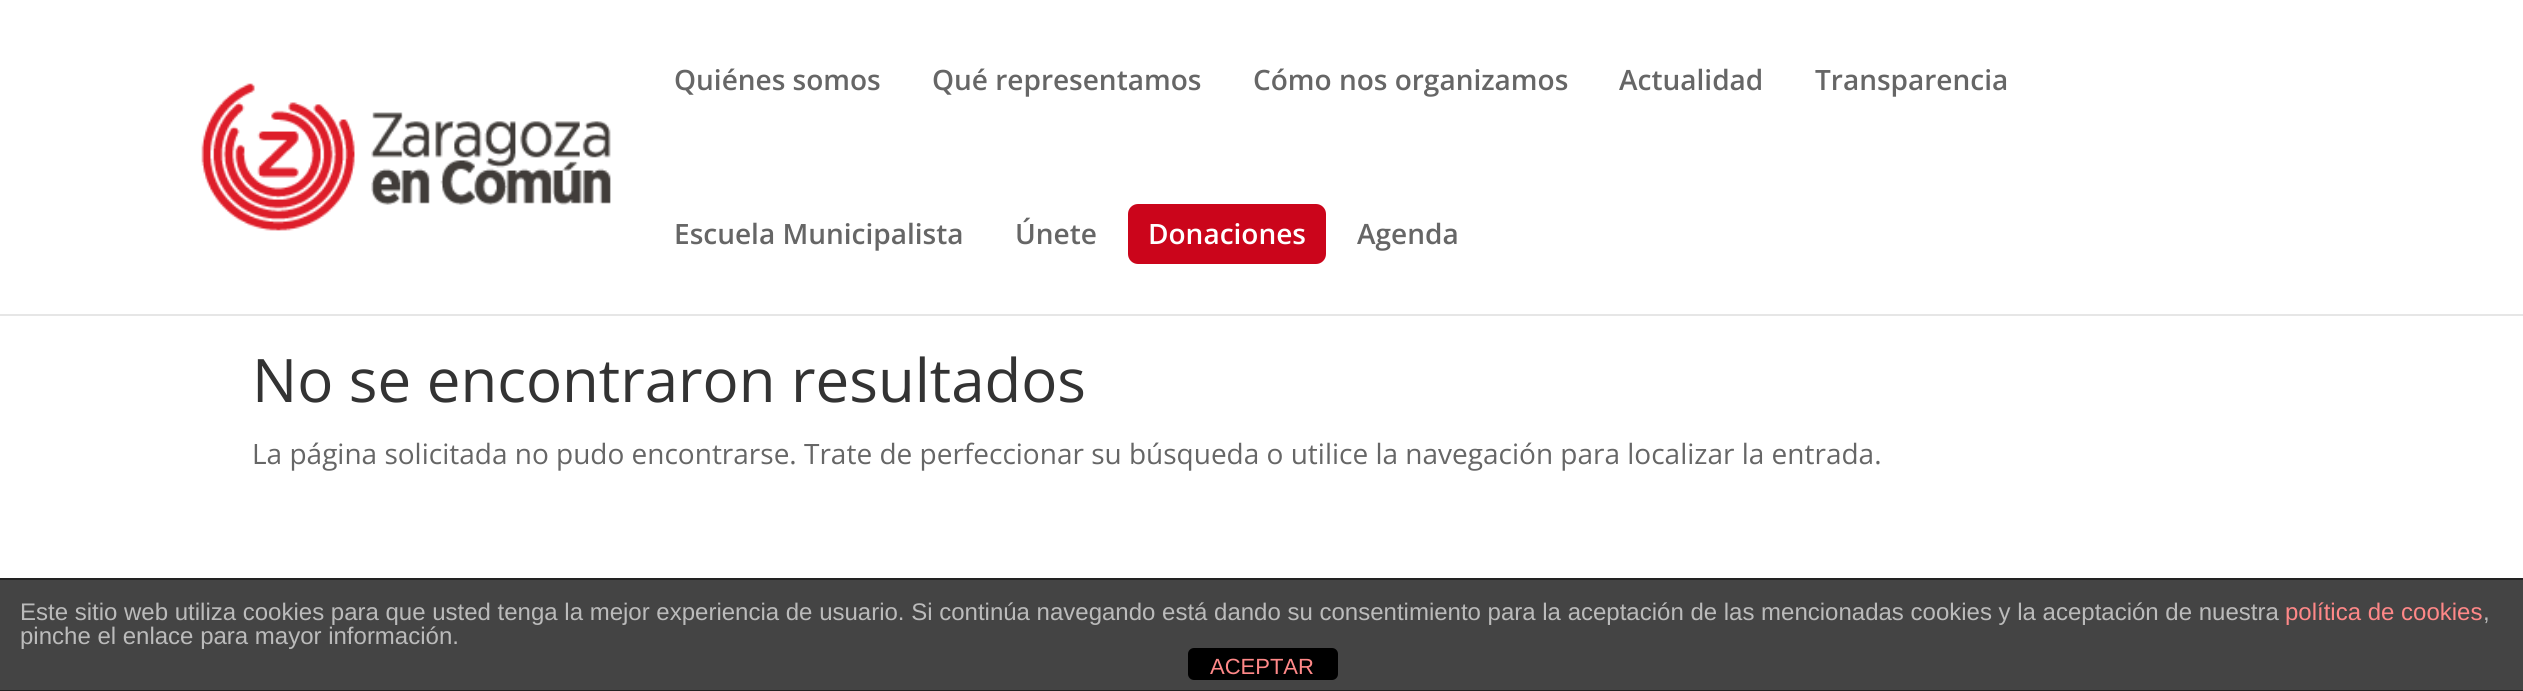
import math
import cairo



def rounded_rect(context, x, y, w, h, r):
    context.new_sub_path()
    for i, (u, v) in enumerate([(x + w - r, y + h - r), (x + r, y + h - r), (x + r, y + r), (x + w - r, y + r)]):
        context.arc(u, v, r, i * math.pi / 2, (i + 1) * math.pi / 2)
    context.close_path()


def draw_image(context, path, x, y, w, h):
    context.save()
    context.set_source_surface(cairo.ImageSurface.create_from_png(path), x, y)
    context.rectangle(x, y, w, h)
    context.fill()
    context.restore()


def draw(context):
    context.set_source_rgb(1, 1, 1)
    context.paint()
    context.set_source_rgb(230 / 255, 230 / 255, 230 / 255)
    context.rectangle(0, 314, 2523, 2)
    context.fill()
    draw_image(context, "images/1.png", 201, 83, 410, 148)
    context.set_source_rgb(203 / 255, 5 / 255, 27 / 255)
    rounded_rect(context, 1128, 204, 198, 60, 10)
    context.fill()
    context.set_source_rgb(68 / 255, 68 / 255, 68 / 255)
    context.rectangle(0, 580, 2523, 110)
    context.fill()
    context.set_source_rgb(34 / 255, 34 / 255, 34 / 255)
    context.rectangle(0, 578, 2523, 2)
    context.fill()
    context.rectangle(0, 690, 2523, 1)
    context.fill()
    context.set_source_rgb(0, 0, 0)
    rounded_rect(context, 1188, 648, 150, 32, 6)
    context.fill()
    context.select_font_face("Open Sans SemiBold")
    context.set_font_size(28)
    context.set_source_rgb(102 / 255, 102 / 255, 102 / 255)
    context.move_to(674, 90)
    context.show_text("Quiénes somos")
    context.move_to(932, 90)
    context.show_text("Qué representamos")
    context.move_to(1253, 90)
    context.show_text("Cómo nos organizamos")
    context.move_to(1619, 90)
    context.show_text("Actualidad")
    context.move_to(1815, 90)
    context.show_text("Transparencia")
    context.move_to(674, 244)
    context.show_text("Escuela Municipalista")
    context.move_to(1015, 244)
    context.show_text("Únete")
    context.set_source_rgb(1, 1, 1)
    context.move_to(1148, 244)
    context.show_text("Donaciones")
    context.set_source_rgb(102 / 255, 102 / 255, 102 / 255)
    context.move_to(1357, 244)
    context.show_text("Agenda")
    context.select_font_face("Open Sans")
    context.set_font_size(60)
    context.set_source_rgb(51 / 255, 51 / 255, 51 / 255)
    context.move_to(252, 402)
    context.show_text("No se encontraron resultados")
    context.set_font_size(28)
    context.set_source_rgb(102 / 255, 102 / 255, 102 / 255)
    context.move_to(252, 464)
    context.show_text("La página solicitada no pudo encontrarse. Trate de perfeccionar su búsqueda o utilice la navegación para localizar la entrada.")
    context.select_font_face("Liberation Sans")
    context.set_font_size(24)
    context.set_source_rgb(187 / 255, 187 / 255, 187 / 255)
    context.move_to(20, 620)
    context.show_text("Este sitio web utiliza cookies para que usted tenga la mejor experiencia de usuario. Si continúa navegando está dando su consentimiento para la aceptación de las mencionadas cookies y la aceptación de nuestra")
    context.set_source_rgb(1, 136 / 255, 136 / 255)
    context.move_to(2285, 620)
    context.show_text("política de cookies")
    context.set_source_rgb(187 / 255, 187 / 255, 187 / 255)
    context.move_to(2483, 620)
    context.show_text(",")
    context.move_to(20, 644)
    context.show_text("pinche el enlace para mayor información.")
    context.set_font_size(22)
    context.set_source_rgb(1, 136 / 255, 136 / 255)
    context.move_to(1210, 674)
    context.show_text("ACEPTAR")


surface = cairo.ImageSurface(cairo.Format.RGB24, 2523, 691)
context = cairo.Context(surface)
options = cairo.FontOptions()
options.set_hint_metrics(cairo.HintMetrics.OFF)
options.set_hint_style(cairo.HintStyle.NONE)
context.set_font_options(options)
context.set_miter_limit(4)
draw(context)
surface.write_to_png("out.png")
